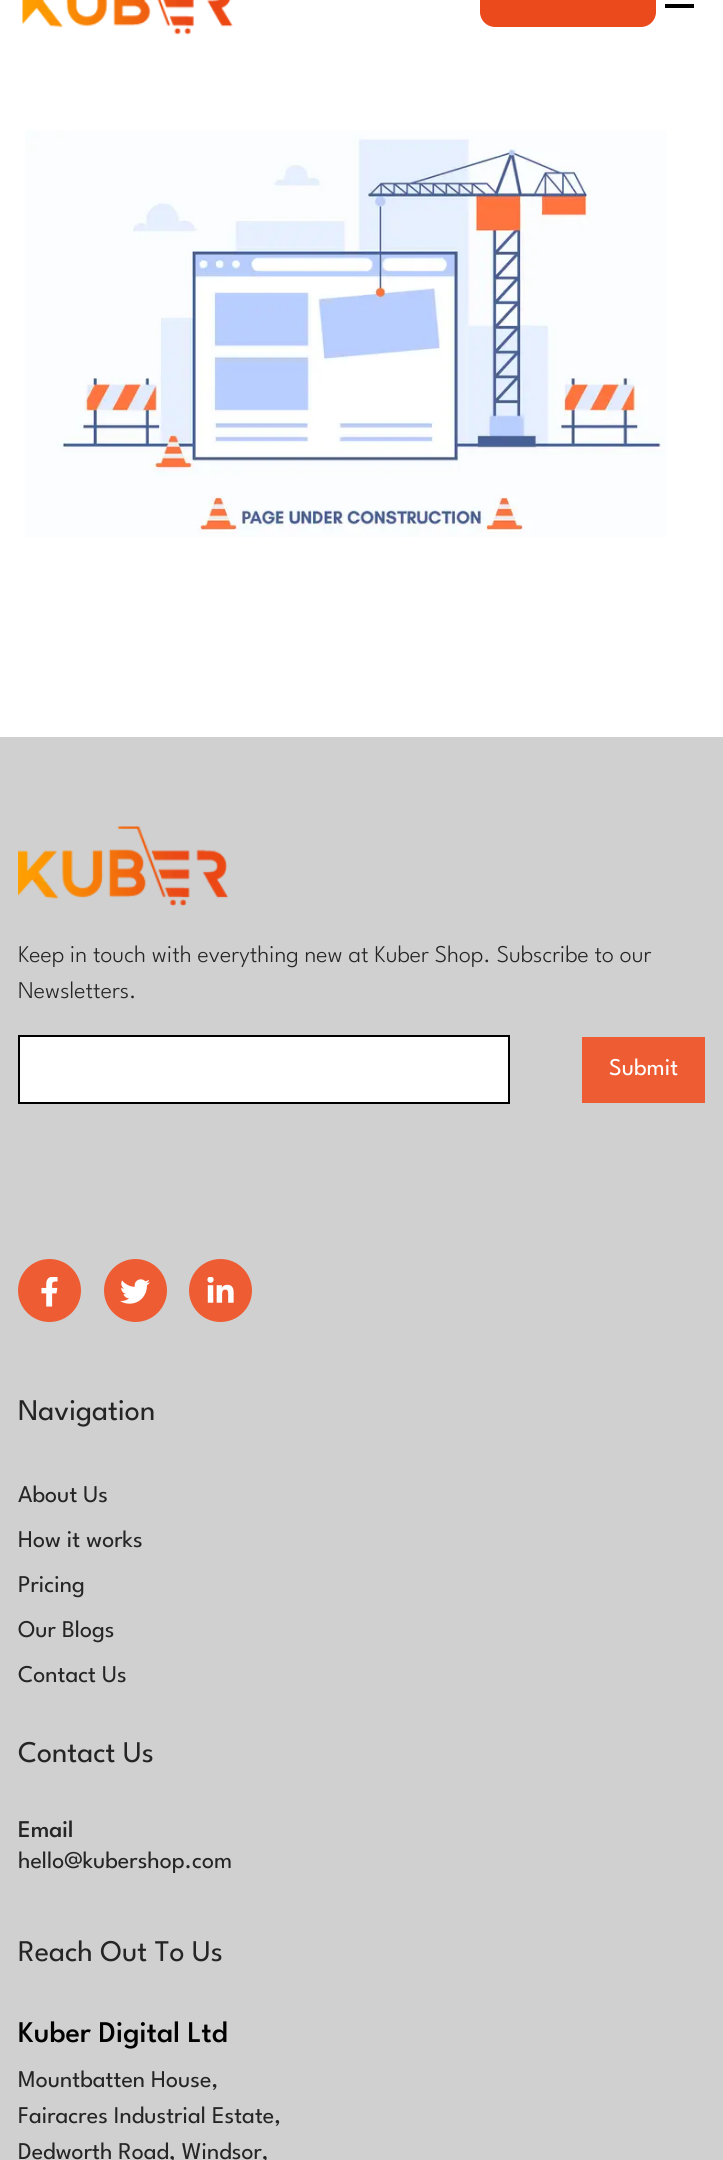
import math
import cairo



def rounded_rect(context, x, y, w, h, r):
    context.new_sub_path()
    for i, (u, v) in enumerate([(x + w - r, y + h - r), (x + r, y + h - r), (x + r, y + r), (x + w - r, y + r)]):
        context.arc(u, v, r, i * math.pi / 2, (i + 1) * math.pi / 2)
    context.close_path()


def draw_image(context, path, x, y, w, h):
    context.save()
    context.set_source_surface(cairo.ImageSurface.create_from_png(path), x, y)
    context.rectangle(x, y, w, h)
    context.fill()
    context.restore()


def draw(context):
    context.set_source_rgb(1, 1, 1)
    context.paint()
    draw_image(context, "images/1.png", 22, 0, 211, 35)
    context.set_source_rgb(235 / 255, 74 / 255, 28 / 255)
    rounded_rect(context, 480, -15, 176, 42, 15)
    context.fill()
    context.set_source_rgb(0, 0, 0)
    context.rectangle(665, 4, 29, 4)
    context.fill()
    draw_image(context, "images/2.png", 25, 130, 642, 407)
    context.set_source_rgb(208 / 255, 208 / 255, 208 / 255)
    context.rectangle(0, 737, 723, 1423)
    context.fill()
    draw_image(context, "images/3.png", 18, 826, 210, 80)
    context.set_source_rgb(1, 1, 1)
    context.rectangle(19, 1036, 490, 67)
    context.fill_preserve()
    context.set_source_rgb(0, 0, 0)
    context.stroke()
    context.set_source_rgb(237 / 255, 92 / 255, 51 / 255)
    context.rectangle(582, 1037, 123, 66)
    context.fill()
    context.arc(49.5, 1290.5, 31.5, 0, 2 * math.pi)
    context.fill()
    draw_image(context, "images/4.png", 41, 1277, 17, 30)
    context.arc(135.5, 1290.5, 31.5, 0, 2 * math.pi)
    context.fill()
    draw_image(context, "images/5.png", 120, 1279, 30, 25)
    context.arc(220.5, 1290.5, 31.5, 0, 2 * math.pi)
    context.fill()
    draw_image(context, "images/6.png", 207, 1277, 27, 26)
    context.select_font_face("League Spartan Light")
    context.set_font_size(24)
    context.set_source_rgb(37 / 255, 37 / 255, 37 / 255)
    context.move_to(18, 962)
    context.show_text("Keep in touch with everything new at Kuber Shop. Subscribe to our")
    context.move_to(18, 998)
    context.show_text("Newsletters.")
    context.select_font_face("League Spartan")
    context.set_source_rgb(1, 1, 1)
    context.move_to(609, 1075)
    context.show_text("Submit")
    context.set_font_size(30)
    context.set_source_rgb(37 / 255, 37 / 255, 37 / 255)
    context.move_to(18, 1420)
    context.show_text("Navigation")
    context.set_font_size(24)
    context.move_to(18, 1502)
    context.show_text("About Us")
    context.move_to(18, 1547)
    context.show_text("How it works")
    context.move_to(18, 1592)
    context.show_text("Pricing")
    context.move_to(18, 1637)
    context.show_text("Our Blogs")
    context.move_to(18, 1682)
    context.show_text("Contact Us")
    context.set_font_size(30)
    context.move_to(18, 1762)
    context.show_text("Contact Us")
    context.select_font_face("League Spartan Medium")
    context.set_font_size(24)
    context.move_to(18, 1837)
    context.show_text("Email")
    context.select_font_face("League Spartan")
    context.move_to(18, 1868)
    context.show_text("hello@kubershop.com")
    context.set_font_size(30)
    context.move_to(18, 1961)
    context.show_text("Reach Out To Us")
    context.select_font_face("League Spartan Medium")
    context.set_source_rgb(0, 0, 0)
    context.move_to(18, 2042)
    context.show_text("Kuber Digital Ltd")
    context.select_font_face("League Spartan")
    context.set_font_size(24)
    context.set_source_rgb(37 / 255, 37 / 255, 37 / 255)
    context.move_to(18, 2087)
    context.show_text("Mountbatten House,")
    context.move_to(18, 2123)
    context.show_text("Fairacres Industrial Estate,")
    context.move_to(18, 2159)
    context.show_text("Dedworth Road, Windsor,")


surface = cairo.ImageSurface(cairo.Format.RGB24, 723, 2160)
context = cairo.Context(surface)
options = cairo.FontOptions()
options.set_hint_metrics(cairo.HintMetrics.OFF)
options.set_hint_style(cairo.HintStyle.NONE)
context.set_font_options(options)
context.set_miter_limit(4)
draw(context)
surface.write_to_png("out.png")
